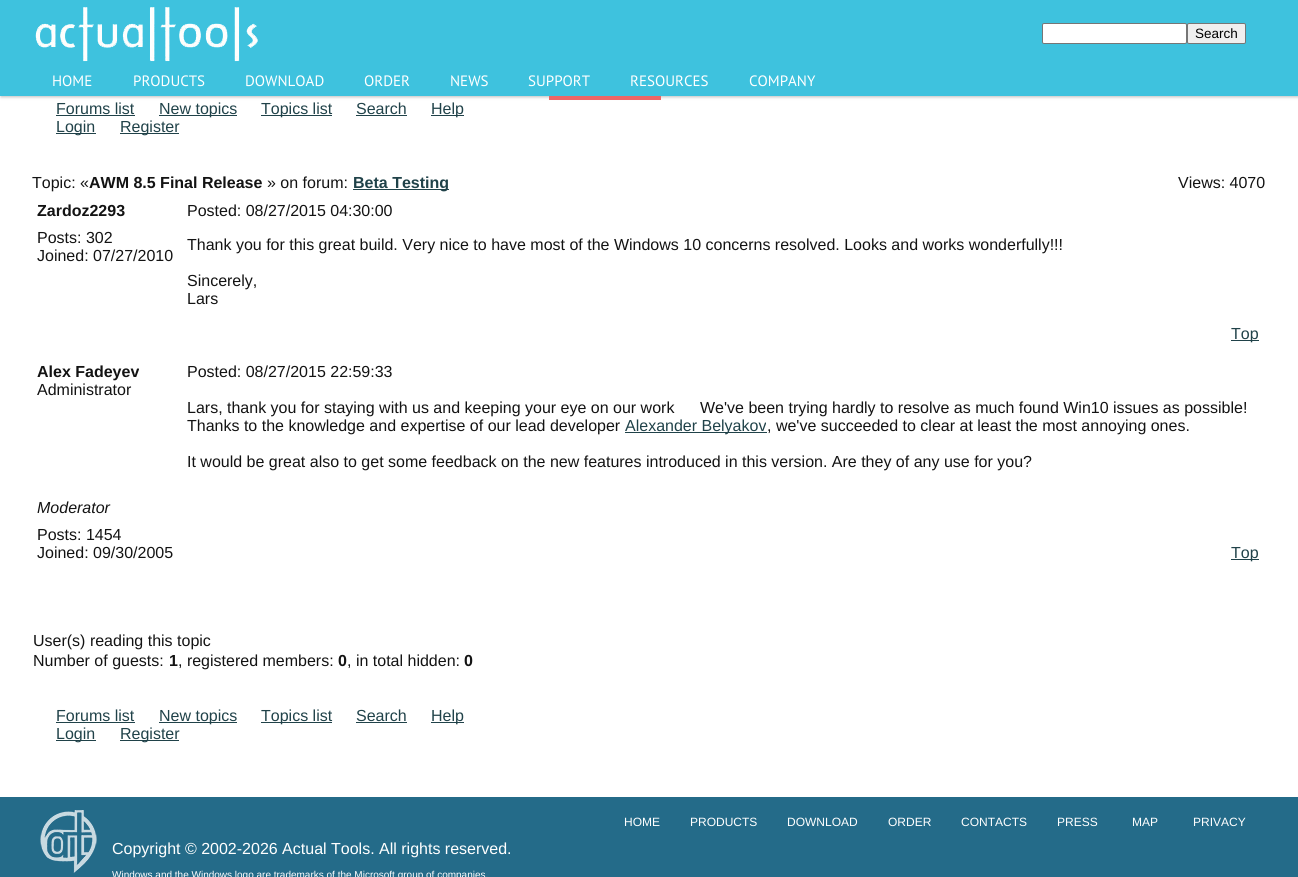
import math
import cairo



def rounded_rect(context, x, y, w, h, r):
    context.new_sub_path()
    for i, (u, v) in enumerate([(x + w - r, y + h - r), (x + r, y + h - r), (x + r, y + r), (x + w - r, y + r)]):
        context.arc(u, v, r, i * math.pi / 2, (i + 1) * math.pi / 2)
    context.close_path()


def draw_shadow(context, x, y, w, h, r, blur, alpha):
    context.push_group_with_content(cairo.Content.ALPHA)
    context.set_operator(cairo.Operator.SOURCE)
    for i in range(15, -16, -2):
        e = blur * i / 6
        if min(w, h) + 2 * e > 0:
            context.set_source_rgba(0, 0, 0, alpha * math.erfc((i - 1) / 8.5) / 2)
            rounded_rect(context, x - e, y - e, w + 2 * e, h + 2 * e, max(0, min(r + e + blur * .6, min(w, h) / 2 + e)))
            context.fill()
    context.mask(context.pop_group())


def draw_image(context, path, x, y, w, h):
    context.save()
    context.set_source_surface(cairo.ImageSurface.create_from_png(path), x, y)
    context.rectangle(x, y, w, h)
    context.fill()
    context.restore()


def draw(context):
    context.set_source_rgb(1, 1, 1)
    context.paint()
    context.set_source_rgb(190 / 255, 190 / 255, 190 / 255)
    draw_shadow(context, 1, 1, 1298, 96, 0, 1.5, 1)
    context.set_source_rgb(62 / 255, 194 / 255, 222 / 255)
    context.rectangle(0, 0, 1298, 96)
    context.fill()
    draw_image(context, "images/1.png", 35, 7, 223, 55)
    context.set_source_rgb(1, 1, 1)
    rounded_rect(context, 1042.5, 23.5, 144, 20, 1.5)
    context.fill_preserve()
    context.set_source_rgb(118 / 255, 118 / 255, 118 / 255)
    context.set_line_width(1)
    context.stroke()
    context.set_source_rgb(239 / 255, 239 / 255, 239 / 255)
    rounded_rect(context, 1187.5, 23.5, 58, 20, 1.5)
    context.fill_preserve()
    context.set_source_rgb(118 / 255, 118 / 255, 118 / 255)
    context.stroke()
    context.set_source_rgb(238 / 255, 102 / 255, 102 / 255)
    context.rectangle(549, 96, 112, 4)
    context.fill()
    context.set_source_rgb(32 / 255, 66 / 255, 73 / 255)
    context.rectangle(56, 115, 79, 1)
    context.fill()
    context.rectangle(159, 115, 78, 1)
    context.fill()
    context.rectangle(261, 115, 71, 1)
    context.fill()
    context.rectangle(356, 115, 51, 1)
    context.fill()
    context.rectangle(431, 115, 33, 1)
    context.fill()
    context.rectangle(56, 133, 40, 1)
    context.fill()
    context.rectangle(120, 133, 59, 1)
    context.fill()
    context.rectangle(353, 189, 96, 1)
    context.fill()
    context.rectangle(1231, 340, 28, 1)
    context.fill()
    context.rectangle(625, 432, 142, 1)
    context.fill()
    context.rectangle(1231, 559, 28, 1)
    context.fill()
    context.rectangle(56, 722, 79, 1)
    context.fill()
    context.rectangle(159, 722, 78, 1)
    context.fill()
    context.rectangle(261, 722, 71, 1)
    context.fill()
    context.rectangle(356, 722, 51, 1)
    context.fill()
    context.rectangle(431, 722, 33, 1)
    context.fill()
    context.rectangle(56, 740, 40, 1)
    context.fill()
    context.rectangle(120, 740, 59, 1)
    context.fill()
    context.set_source_rgb(36 / 255, 107 / 255, 137 / 255)
    context.rectangle(0, 797, 1298, 80)
    context.fill()
    draw_image(context, "images/2.png", 40, 810, 57, 63)
    context.select_font_face("Liberation Sans")
    context.set_font_size(13.5)
    context.set_source_rgb(0, 0, 0)
    context.move_to(1195, 38)
    context.show_text("Search")
    context.select_font_face("PT Sans")
    context.set_font_size(15)
    context.set_source_rgb(1, 1, 1)
    context.move_to(52, 86)
    context.show_text("HOME")
    context.move_to(133, 86)
    context.show_text("PRODUCTS")
    context.move_to(245, 86)
    context.show_text("DOWNLOAD")
    context.move_to(364, 86)
    context.show_text("ORDER")
    context.move_to(450, 86)
    context.show_text("NEWS")
    context.move_to(528, 86)
    context.show_text("SUPPORT")
    context.move_to(630, 86)
    context.show_text("RESOURCES")
    context.move_to(749, 86)
    context.show_text("COMPANY")
    context.select_font_face("Liberation Sans")
    context.set_font_size(16)
    context.set_source_rgb(32 / 255, 66 / 255, 73 / 255)
    context.move_to(56, 114)
    context.show_text("Forums list")
    context.move_to(159, 114)
    context.show_text("New topics")
    context.move_to(261, 114)
    context.show_text("Topics list")
    context.move_to(356, 114)
    context.show_text("Search")
    context.move_to(431, 114)
    context.show_text("Help")
    context.move_to(56, 132)
    context.show_text("Login")
    context.move_to(120, 132)
    context.show_text("Register")
    context.set_source_rgb(19 / 255, 19 / 255, 19 / 255)
    context.move_to(32, 188)
    context.show_text("Topic: «")
    context.select_font_face("Liberation Sans", cairo.FontSlant.NORMAL, cairo.FontWeight.BOLD)
    context.move_to(89, 188)
    context.show_text("AWM 8.5 Final Release")
    context.select_font_face("Liberation Sans")
    context.move_to(267, 188)
    context.show_text("» on forum:")
    context.select_font_face("Liberation Sans", cairo.FontSlant.NORMAL, cairo.FontWeight.BOLD)
    context.set_source_rgb(32 / 255, 66 / 255, 73 / 255)
    context.move_to(353, 188)
    context.show_text("Beta Testing")
    context.select_font_face("Liberation Sans")
    context.set_source_rgb(19 / 255, 19 / 255, 19 / 255)
    context.move_to(1178, 188)
    context.show_text("Views: 4070")
    context.select_font_face("Liberation Sans", cairo.FontSlant.NORMAL, cairo.FontWeight.BOLD)
    context.move_to(37, 216)
    context.show_text("Zardoz2293")
    context.select_font_face("Liberation Sans")
    context.move_to(37, 243)
    context.show_text("Posts: 302")
    context.move_to(37, 261)
    context.show_text("Joined: 07/27/2010")
    context.move_to(187, 216)
    context.show_text("Posted: 08/27/2015 04:30:00")
    context.move_to(187, 250)
    context.show_text("Thank you for this great build. Very nice to have most of the Windows 10 concerns resolved. Looks and works wonderfully!!!")
    context.move_to(187, 286)
    context.show_text("Sincerely,")
    context.move_to(187, 304)
    context.show_text("Lars")
    context.set_source_rgb(32 / 255, 66 / 255, 73 / 255)
    context.move_to(1231, 339)
    context.show_text("Top")
    context.select_font_face("Liberation Sans", cairo.FontSlant.NORMAL, cairo.FontWeight.BOLD)
    context.set_source_rgb(19 / 255, 19 / 255, 19 / 255)
    context.move_to(37, 377)
    context.show_text("Alex Fadeyev")
    context.select_font_face("Liberation Sans")
    context.move_to(37, 395)
    context.show_text("Administrator")
    context.select_font_face("Liberation Sans", cairo.FontSlant.ITALIC)
    context.move_to(37, 513)
    context.show_text("Moderator")
    context.select_font_face("Liberation Sans")
    context.move_to(37, 540)
    context.show_text("Posts: 1454")
    context.move_to(37, 558)
    context.show_text("Joined: 09/30/2005")
    context.move_to(187, 377)
    context.show_text("Posted: 08/27/2015 22:59:33")
    context.move_to(187, 413)
    context.show_text("Lars, thank you for staying with us and keeping your eye on our work")
    context.move_to(700, 413)
    context.show_text("We've been trying hardly to resolve as much found Win10 issues as possible!")
    context.move_to(187, 431)
    context.show_text("Thanks to the knowledge and expertise of our lead developer")
    context.set_source_rgb(32 / 255, 66 / 255, 73 / 255)
    context.move_to(625, 431)
    context.show_text("Alexander Belyakov")
    context.set_source_rgb(19 / 255, 19 / 255, 19 / 255)
    context.move_to(767, 431)
    context.show_text(", we've succeeded to clear at least the most annoying ones.")
    context.move_to(187, 467)
    context.show_text("It would be great also to get some feedback on the new features introduced in this version. Are they of any use for you?")
    context.set_source_rgb(32 / 255, 66 / 255, 73 / 255)
    context.move_to(1231, 558)
    context.show_text("Top")
    context.set_source_rgb(19 / 255, 19 / 255, 19 / 255)
    context.move_to(33, 646)
    context.show_text("User(s) reading this topic")
    context.move_to(33, 666)
    context.show_text("Number of guests:")
    context.select_font_face("Liberation Sans", cairo.FontSlant.NORMAL, cairo.FontWeight.BOLD)
    context.move_to(169, 666)
    context.show_text("1")
    context.select_font_face("Liberation Sans")
    context.move_to(178, 666)
    context.show_text(", registered members:")
    context.select_font_face("Liberation Sans", cairo.FontSlant.NORMAL, cairo.FontWeight.BOLD)
    context.move_to(338, 666)
    context.show_text("0")
    context.select_font_face("Liberation Sans")
    context.move_to(347, 666)
    context.show_text(", in total hidden:")
    context.select_font_face("Liberation Sans", cairo.FontSlant.NORMAL, cairo.FontWeight.BOLD)
    context.move_to(464, 666)
    context.show_text("0")
    context.select_font_face("Liberation Sans")
    context.set_source_rgb(32 / 255, 66 / 255, 73 / 255)
    context.move_to(56, 721)
    context.show_text("Forums list")
    context.move_to(159, 721)
    context.show_text("New topics")
    context.move_to(261, 721)
    context.show_text("Topics list")
    context.move_to(356, 721)
    context.show_text("Search")
    context.move_to(431, 721)
    context.show_text("Help")
    context.move_to(56, 739)
    context.show_text("Login")
    context.move_to(120, 739)
    context.show_text("Register")
    context.set_font_size(12)
    context.set_source_rgb(1, 1, 1)
    context.move_to(624, 826)
    context.show_text("HOME")
    context.move_to(690, 826)
    context.show_text("PRODUCTS")
    context.move_to(787, 826)
    context.show_text("DOWNLOAD")
    context.move_to(888, 826)
    context.show_text("ORDER")
    context.move_to(961, 826)
    context.show_text("CONTACTS")
    context.move_to(1057, 826)
    context.show_text("PRESS")
    context.move_to(1132, 826)
    context.show_text("MAP")
    context.move_to(1193, 826)
    context.show_text("PRIVACY")
    context.set_font_size(16)
    context.move_to(112, 854)
    context.show_text("Copyright © 2002-2026 Actual Tools. All rights reserved.")
    context.set_font_size(10)
    context.move_to(112, 878)
    context.show_text("Windows and the Windows logo are trademarks of the Microsoft group of companies.")


surface = cairo.ImageSurface(cairo.Format.RGB24, 1298, 877)
context = cairo.Context(surface)
options = cairo.FontOptions()
options.set_hint_metrics(cairo.HintMetrics.OFF)
options.set_hint_style(cairo.HintStyle.NONE)
context.set_font_options(options)
context.set_miter_limit(4)
draw(context)
surface.write_to_png("out.png")
